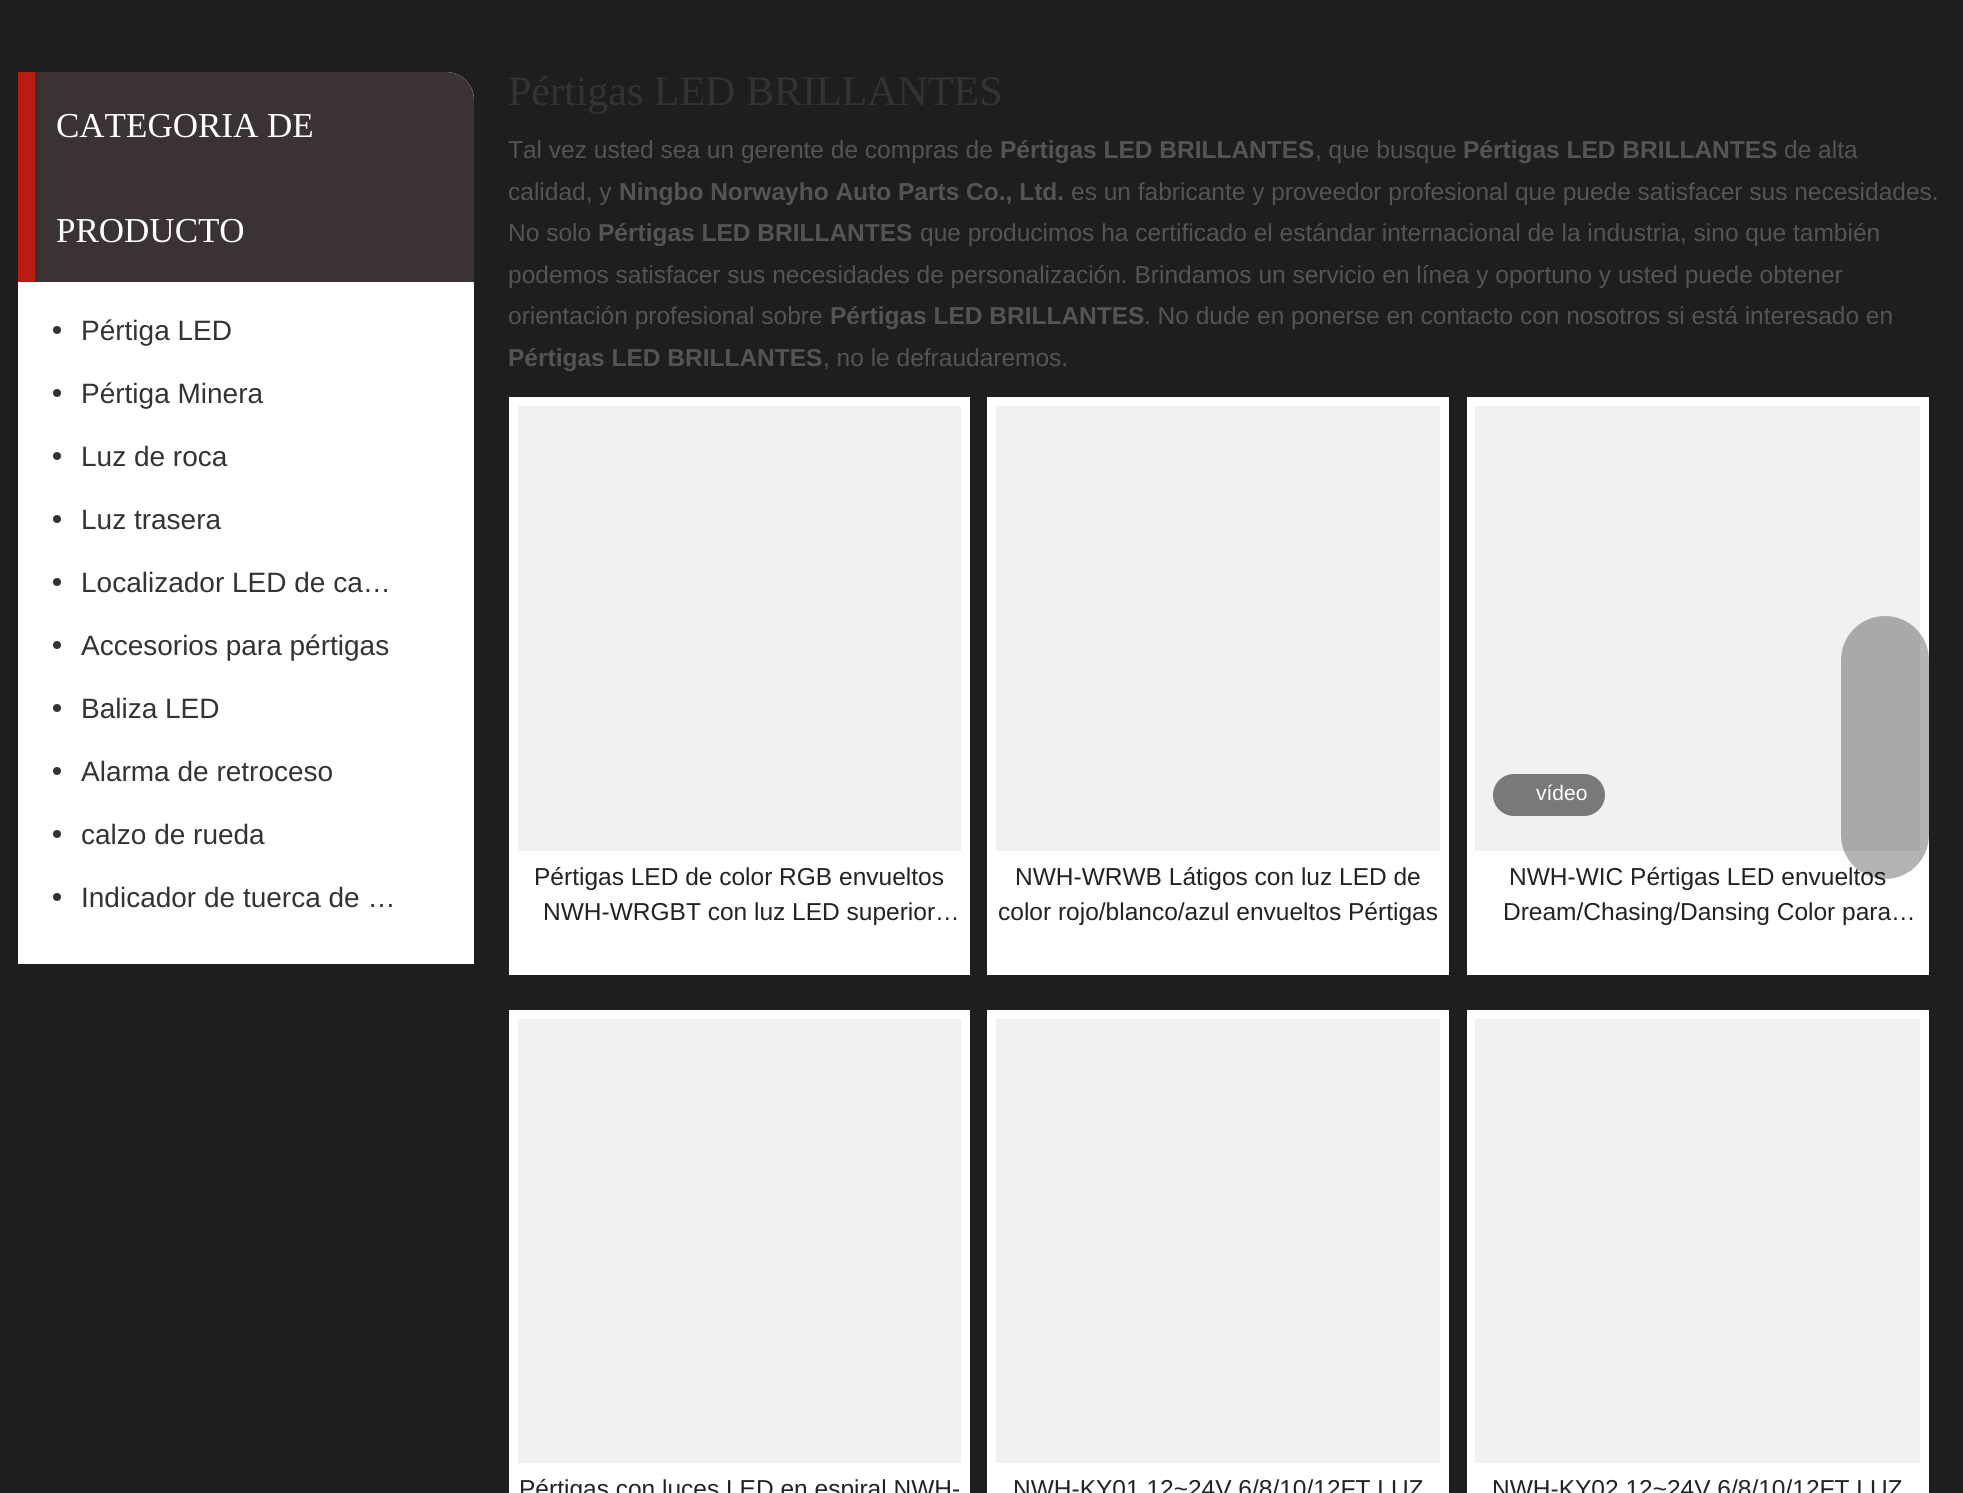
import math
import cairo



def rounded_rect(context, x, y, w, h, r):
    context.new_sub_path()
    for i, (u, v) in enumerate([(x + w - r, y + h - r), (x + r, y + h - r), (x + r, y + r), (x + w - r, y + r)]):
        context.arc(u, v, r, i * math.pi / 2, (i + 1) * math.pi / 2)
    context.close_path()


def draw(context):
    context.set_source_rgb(30 / 255, 30 / 255, 30 / 255)
    context.paint()
    context.set_source_rgb(1, 1, 1)
    context.new_path()
    context.move_to(18, 72)
    context.line_to(446, 72)
    context.curve_to(461.5, 72, 474, 84.5, 474, 100)
    context.line_to(474, 964)
    context.line_to(18, 964)
    context.close_path()
    context.fill()
    context.set_source_rgb(59 / 255, 51 / 255, 51 / 255)
    context.new_path()
    context.move_to(35, 72)
    context.line_to(446, 72)
    context.curve_to(461.5, 72, 474, 84.5, 474, 100)
    context.line_to(474, 282)
    context.line_to(35, 282)
    context.close_path()
    context.fill()
    context.set_source_rgb(186 / 255, 28 / 255, 21 / 255)
    context.rectangle(18, 72, 17, 210)
    context.fill()
    context.set_source_rgb(51 / 255, 51 / 255, 51 / 255)
    context.arc(57, 330, 4, 0, 2 * math.pi)
    context.fill()
    context.arc(57, 393, 4, 0, 2 * math.pi)
    context.fill()
    context.arc(57, 456, 4, 0, 2 * math.pi)
    context.fill()
    context.arc(57, 519, 4, 0, 2 * math.pi)
    context.fill()
    context.arc(57, 582, 4, 0, 2 * math.pi)
    context.fill()
    context.arc(57, 645, 4, 0, 2 * math.pi)
    context.fill()
    context.arc(57, 708, 4, 0, 2 * math.pi)
    context.fill()
    context.arc(57, 771, 4, 0, 2 * math.pi)
    context.fill()
    context.arc(57, 834, 4, 0, 2 * math.pi)
    context.fill()
    context.arc(57, 897, 4, 0, 2 * math.pi)
    context.fill()
    context.set_source_rgb(1, 1, 1)
    context.rectangle(509, 397, 461, 578)
    context.fill()
    context.set_source_rgb(240 / 255, 241 / 255, 242 / 255)
    context.rectangle(518, 406, 443, 445)
    context.fill()
    context.set_source_rgb(1, 1, 1)
    context.rectangle(987, 397, 462, 578)
    context.fill()
    context.set_source_rgb(240 / 255, 241 / 255, 242 / 255)
    context.rectangle(996, 406, 444, 445)
    context.fill()
    context.set_source_rgb(1, 1, 1)
    context.rectangle(1467, 397, 462, 578)
    context.fill()
    context.set_source_rgb(240 / 255, 241 / 255, 242 / 255)
    context.rectangle(1475, 406, 445, 445)
    context.fill()
    context.set_source_rgb(120 / 255, 121 / 255, 121 / 255)
    rounded_rect(context, 1493, 774, 112, 42, 21)
    context.fill()
    context.set_source_rgb(1, 1, 1)
    context.rectangle(509, 1010, 461, 483)
    context.fill()
    context.set_source_rgb(240 / 255, 241 / 255, 242 / 255)
    context.rectangle(518, 1019, 443, 444)
    context.fill()
    context.set_source_rgb(1, 1, 1)
    context.rectangle(987, 1010, 462, 483)
    context.fill()
    context.set_source_rgb(240 / 255, 241 / 255, 242 / 255)
    context.rectangle(996, 1019, 444, 444)
    context.fill()
    context.set_source_rgb(1, 1, 1)
    context.rectangle(1467, 1010, 462, 483)
    context.fill()
    context.set_source_rgb(240 / 255, 241 / 255, 242 / 255)
    context.rectangle(1475, 1019, 445, 444)
    context.fill()
    context.select_font_face("Liberation Serif")
    context.set_font_size(35)
    context.set_source_rgb(1, 1, 1)
    context.move_to(56, 137)
    context.show_text("CATEGORIA DE")
    context.move_to(56, 242)
    context.show_text("PRODUCTO")
    context.select_font_face("Liberation Sans")
    context.set_font_size(28)
    context.set_source_rgb(51 / 255, 51 / 255, 51 / 255)
    context.move_to(81, 340)
    context.show_text("Pértiga LED")
    context.move_to(81, 403)
    context.show_text("Pértiga Minera")
    context.move_to(81, 466)
    context.show_text("Luz de roca")
    context.move_to(81, 529)
    context.show_text("Luz trasera")
    context.move_to(81, 592)
    context.show_text("Localizador LED de ca…")
    context.move_to(81, 655)
    context.show_text("Accesorios para pértigas")
    context.move_to(81, 718)
    context.show_text("Baliza LED")
    context.move_to(81, 781)
    context.show_text("Alarma de retroceso")
    context.move_to(81, 844)
    context.show_text("calzo de rueda")
    context.move_to(81, 907)
    context.show_text("Indicador de tuerca de …")
    context.select_font_face("Liberation Serif")
    context.set_font_size(42)
    context.move_to(508, 105)
    context.show_text("Pértigas LED BRILLANTES")
    context.select_font_face("Liberation Sans")
    context.set_font_size(24.5)
    context.set_source_rgb(84 / 255, 84 / 255, 84 / 255)
    context.move_to(508, 158)
    context.show_text("Tal vez usted sea un gerente de compras de")
    context.select_font_face("Liberation Sans", cairo.FontSlant.NORMAL, cairo.FontWeight.BOLD)
    context.move_to(1000, 158)
    context.show_text("Pértigas LED BRILLANTES")
    context.select_font_face("Liberation Sans")
    context.move_to(1315, 158)
    context.show_text(", que busque")
    context.select_font_face("Liberation Sans", cairo.FontSlant.NORMAL, cairo.FontWeight.BOLD)
    context.move_to(1463, 158)
    context.show_text("Pértigas LED BRILLANTES")
    context.select_font_face("Liberation Sans")
    context.move_to(1784, 158)
    context.show_text("de alta")
    context.move_to(508, 200)
    context.show_text("calidad, y")
    context.select_font_face("Liberation Sans", cairo.FontSlant.NORMAL, cairo.FontWeight.BOLD)
    context.move_to(619, 200)
    context.show_text("Ningbo Norwayho Auto Parts Co., Ltd.")
    context.select_font_face("Liberation Sans")
    context.move_to(1071, 200)
    context.show_text("es un fabricante y proveedor profesional que puede satisfacer sus necesidades.")
    context.move_to(508, 241)
    context.show_text("No solo")
    context.select_font_face("Liberation Sans", cairo.FontSlant.NORMAL, cairo.FontWeight.BOLD)
    context.move_to(598, 241)
    context.show_text("Pértigas LED BRILLANTES")
    context.select_font_face("Liberation Sans")
    context.move_to(920, 241)
    context.show_text("que producimos ha certificado el estándar internacional de la industria, sino que también")
    context.move_to(508, 283)
    context.show_text("podemos satisfacer sus necesidades de personalización. Brindamos un servicio en línea y oportuno y usted puede obtener")
    context.move_to(508, 324)
    context.show_text("orientación profesional sobre")
    context.select_font_face("Liberation Sans", cairo.FontSlant.NORMAL, cairo.FontWeight.BOLD)
    context.move_to(830, 324)
    context.show_text("Pértigas LED BRILLANTES")
    context.select_font_face("Liberation Sans")
    context.move_to(1144, 324)
    context.show_text(". No dude en ponerse en contacto con nosotros si está interesado en")
    context.select_font_face("Liberation Sans", cairo.FontSlant.NORMAL, cairo.FontWeight.BOLD)
    context.move_to(508, 366)
    context.show_text("Pértigas LED BRILLANTES")
    context.select_font_face("Liberation Sans")
    context.move_to(823, 366)
    context.show_text(", no le defraudaremos.")
    context.set_source_rgb(34 / 255, 34 / 255, 34 / 255)
    context.move_to(534, 885)
    context.show_text("Pértigas LED de color RGB envueltos")
    context.move_to(543, 920)
    context.show_text("NWH-WRGBT con luz LED superior…")
    context.move_to(1015, 885)
    context.show_text("NWH-WRWB Látigos con luz LED de")
    context.move_to(998, 920)
    context.show_text("color rojo/blanco/azul envueltos Pértigas")
    context.set_font_size(21)
    context.set_source_rgb(1, 1, 1)
    context.move_to(1536, 800)
    context.show_text("vídeo")
    context.set_font_size(24.5)
    context.set_source_rgb(34 / 255, 34 / 255, 34 / 255)
    context.move_to(1509, 885)
    context.show_text("NWH-WIC Pértigas LED envueltos")
    context.move_to(1503, 920)
    context.show_text("Dream/Chasing/Dansing Color para…")
    context.move_to(519, 1497)
    context.show_text("Pértigas con luces LED en espiral NWH-")
    context.move_to(1013, 1497)
    context.show_text("NWH-KY01 12~24V 6/8/10/12FT LUZ")
    context.move_to(1492, 1497)
    context.show_text("NWH-KY02 12~24V 6/8/10/12FT LUZ")
    context.set_source_rgba(0, 0, 0, 0.3)
    rounded_rect(context, 1841, 616, 88, 263, 44)
    context.fill()


surface = cairo.ImageSurface(cairo.Format.RGB24, 1963, 1493)
context = cairo.Context(surface)
options = cairo.FontOptions()
options.set_hint_metrics(cairo.HintMetrics.OFF)
options.set_hint_style(cairo.HintStyle.NONE)
context.set_font_options(options)
context.set_miter_limit(4)
draw(context)
surface.write_to_png("out.png")
